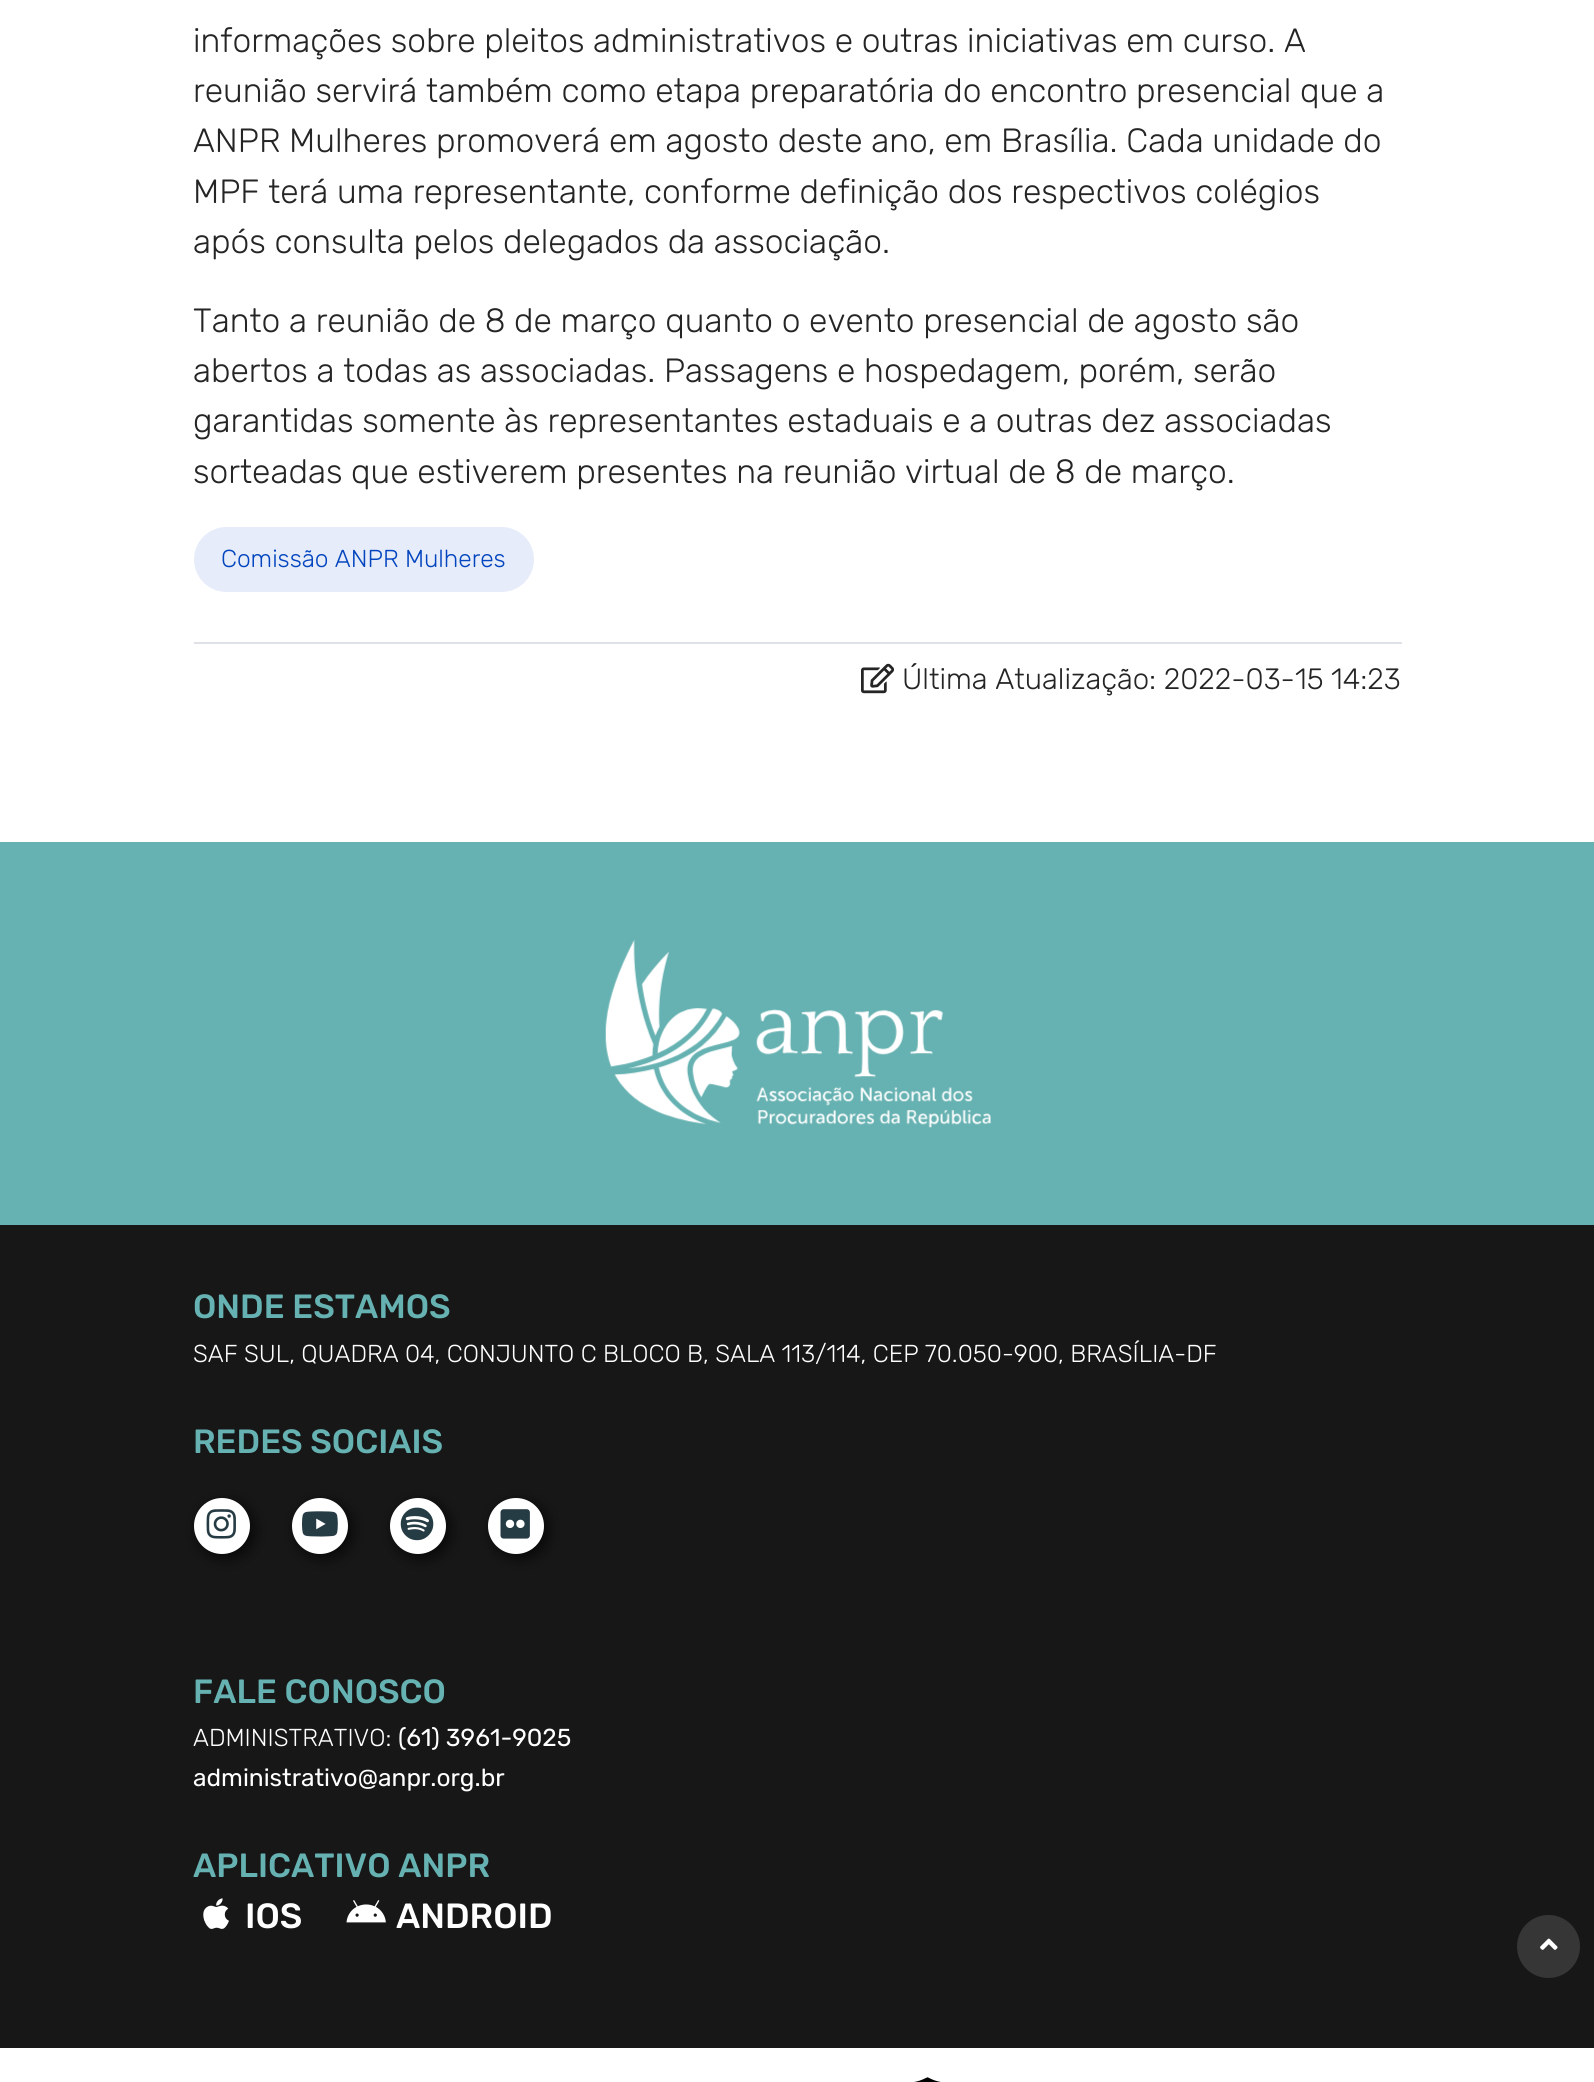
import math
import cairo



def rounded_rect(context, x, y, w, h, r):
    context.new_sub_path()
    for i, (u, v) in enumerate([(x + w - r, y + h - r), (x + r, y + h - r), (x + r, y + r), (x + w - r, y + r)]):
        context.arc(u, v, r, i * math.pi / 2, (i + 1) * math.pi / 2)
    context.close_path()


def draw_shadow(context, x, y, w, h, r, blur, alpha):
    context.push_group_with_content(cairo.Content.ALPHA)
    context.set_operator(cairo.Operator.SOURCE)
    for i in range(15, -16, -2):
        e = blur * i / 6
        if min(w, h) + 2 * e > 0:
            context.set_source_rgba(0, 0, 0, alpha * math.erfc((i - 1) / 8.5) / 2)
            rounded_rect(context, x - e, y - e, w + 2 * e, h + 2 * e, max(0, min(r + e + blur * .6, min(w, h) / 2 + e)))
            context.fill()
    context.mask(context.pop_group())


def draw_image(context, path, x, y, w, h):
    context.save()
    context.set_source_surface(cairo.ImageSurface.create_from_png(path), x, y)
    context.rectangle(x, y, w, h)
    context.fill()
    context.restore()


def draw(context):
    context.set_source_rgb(1, 1, 1)
    context.paint()
    context.set_source_rgb(230 / 255, 236 / 255, 249 / 255)
    rounded_rect(context, 194, 527, 340, 65, 32.5)
    context.fill()
    context.set_source_rgb(222 / 255, 226 / 255, 230 / 255)
    context.rectangle(194, 642, 1208, 2)
    context.fill()
    draw_image(context, "images/1.png", 861, 663, 34, 31)
    context.set_source_rgb(23 / 255, 23 / 255, 23 / 255)
    context.rectangle(0, 1225, 1594, 823)
    context.fill()
    context.set_source_rgb(102 / 255, 177 / 255, 177 / 255)
    context.rectangle(0, 842, 1594, 383)
    context.fill()
    draw_image(context, "images/2.png", 605, 940, 386, 188)
    context.set_source_rgb(0, 0, 0)
    draw_shadow(context, 198, 1502, 56, 56, 28, 7, 0.7)
    context.set_source_rgb(1, 1, 1)
    context.arc(222, 1526, 28, 0, 2 * math.pi)
    context.fill()
    draw_image(context, "images/3.png", 206, 1509, 30, 30)
    context.set_source_rgb(0, 0, 0)
    draw_shadow(context, 296, 1502, 56, 56, 28, 7, 0.7)
    context.set_source_rgb(1, 1, 1)
    context.arc(320, 1526, 28, 0, 2 * math.pi)
    context.fill()
    draw_image(context, "images/4.png", 302, 1511, 36, 26)
    context.set_source_rgb(0, 0, 0)
    draw_shadow(context, 394, 1502, 56, 56, 28, 7, 0.7)
    context.set_source_rgb(1, 1, 1)
    context.arc(418, 1526, 28, 0, 2 * math.pi)
    context.fill()
    draw_image(context, "images/5.png", 400, 1507, 34, 34)
    context.set_source_rgb(0, 0, 0)
    draw_shadow(context, 492, 1502, 56, 56, 28, 7, 0.7)
    context.set_source_rgb(1, 1, 1)
    context.arc(516, 1526, 28, 0, 2 * math.pi)
    context.fill()
    draw_image(context, "images/6.png", 500, 1509, 30, 30)
    draw_image(context, "images/7.png", 203, 1898, 26, 31)
    draw_image(context, "images/8.png", 346, 1900, 40, 23)
    draw_image(context, "images/9.png", 914, 2077, 27, 5)
    context.set_source_rgb(54 / 255, 54 / 255, 54 / 255)
    context.arc(1548.5, 1946.5, 31.5, 0, 2 * math.pi)
    context.fill()
    draw_image(context, "images/10.png", 1540, 1938, 18, 12)
    context.select_font_face("Rubik Light")
    context.set_font_size(33.6)
    context.set_source_rgb(37 / 255, 37 / 255, 37 / 255)
    context.move_to(193, 52)
    context.show_text("informações sobre pleitos administrativos e outras iniciativas em curso. A")
    context.move_to(193, 102)
    context.show_text("reunião servirá também como etapa preparatória do encontro presencial que a")
    context.move_to(193, 152)
    context.show_text("ANPR Mulheres promoverá em agosto deste ano, em Brasília. Cada unidade do")
    context.move_to(193, 203)
    context.show_text("MPF terá uma representante, conforme definição dos respectivos colégios")
    context.move_to(193, 253)
    context.show_text("após consulta pelos delegados da associação.")
    context.move_to(193, 332)
    context.show_text("Tanto a reunião de 8 de março quanto o evento presencial de agosto são")
    context.move_to(193, 382)
    context.show_text("abertos a todas as associadas. Passagens e hospedagem, porém, serão")
    context.move_to(193, 432)
    context.show_text("garantidas somente às representantes estaduais e a outras dez associadas")
    context.move_to(193, 483)
    context.show_text("sorteadas que estiverem presentes na reunião virtual de 8 de março.")
    context.set_font_size(24.5)
    context.set_source_rgb(3 / 255, 69 / 255, 191 / 255)
    context.move_to(221, 567)
    context.show_text("Comissão ANPR Mulheres")
    context.set_font_size(29.4)
    context.set_source_rgb(37 / 255, 37 / 255, 37 / 255)
    context.move_to(902, 689)
    context.show_text("Última Atualização: 2022-03-15 14:23")
    context.select_font_face("Rubik Medium")
    context.set_font_size(33.6)
    context.set_source_rgb(102 / 255, 177 / 255, 177 / 255)
    context.move_to(193, 1318)
    context.show_text("ONDE ESTAMOS")
    context.select_font_face("Rubik Light")
    context.set_font_size(24.5)
    context.set_source_rgb(1, 1, 1)
    context.move_to(193, 1362)
    context.show_text("SAF SUL, QUADRA 04, CONJUNTO C BLOCO B, SALA 113/114, CEP 70.050-900, BRASÍLIA-DF")
    context.select_font_face("Rubik Medium")
    context.set_font_size(33.6)
    context.set_source_rgb(102 / 255, 177 / 255, 177 / 255)
    context.move_to(193, 1453)
    context.show_text("REDES SOCIAIS")
    context.move_to(193, 1703)
    context.show_text("FALE CONOSCO")
    context.select_font_face("Rubik Light")
    context.set_font_size(24.5)
    context.set_source_rgb(1, 1, 1)
    context.move_to(193, 1746)
    context.show_text("ADMINISTRATIVO:")
    context.select_font_face("Rubik")
    context.move_to(398, 1746)
    context.show_text("(61) 3961-9025")
    context.move_to(193, 1786)
    context.show_text("administrativo@anpr.org.br")
    context.select_font_face("Rubik Medium")
    context.set_font_size(33.6)
    context.set_source_rgb(102 / 255, 177 / 255, 177 / 255)
    context.move_to(193, 1877)
    context.show_text("APLICATIVO ANPR")
    context.set_font_size(35)
    context.set_source_rgb(1, 1, 1)
    context.move_to(245, 1928)
    context.show_text("IOS")
    context.move_to(396, 1928)
    context.show_text("ANDROID")


surface = cairo.ImageSurface(cairo.Format.RGB24, 1594, 2082)
context = cairo.Context(surface)
options = cairo.FontOptions()
options.set_hint_metrics(cairo.HintMetrics.OFF)
options.set_hint_style(cairo.HintStyle.NONE)
context.set_font_options(options)
context.set_miter_limit(4)
draw(context)
surface.write_to_png("out.png")
